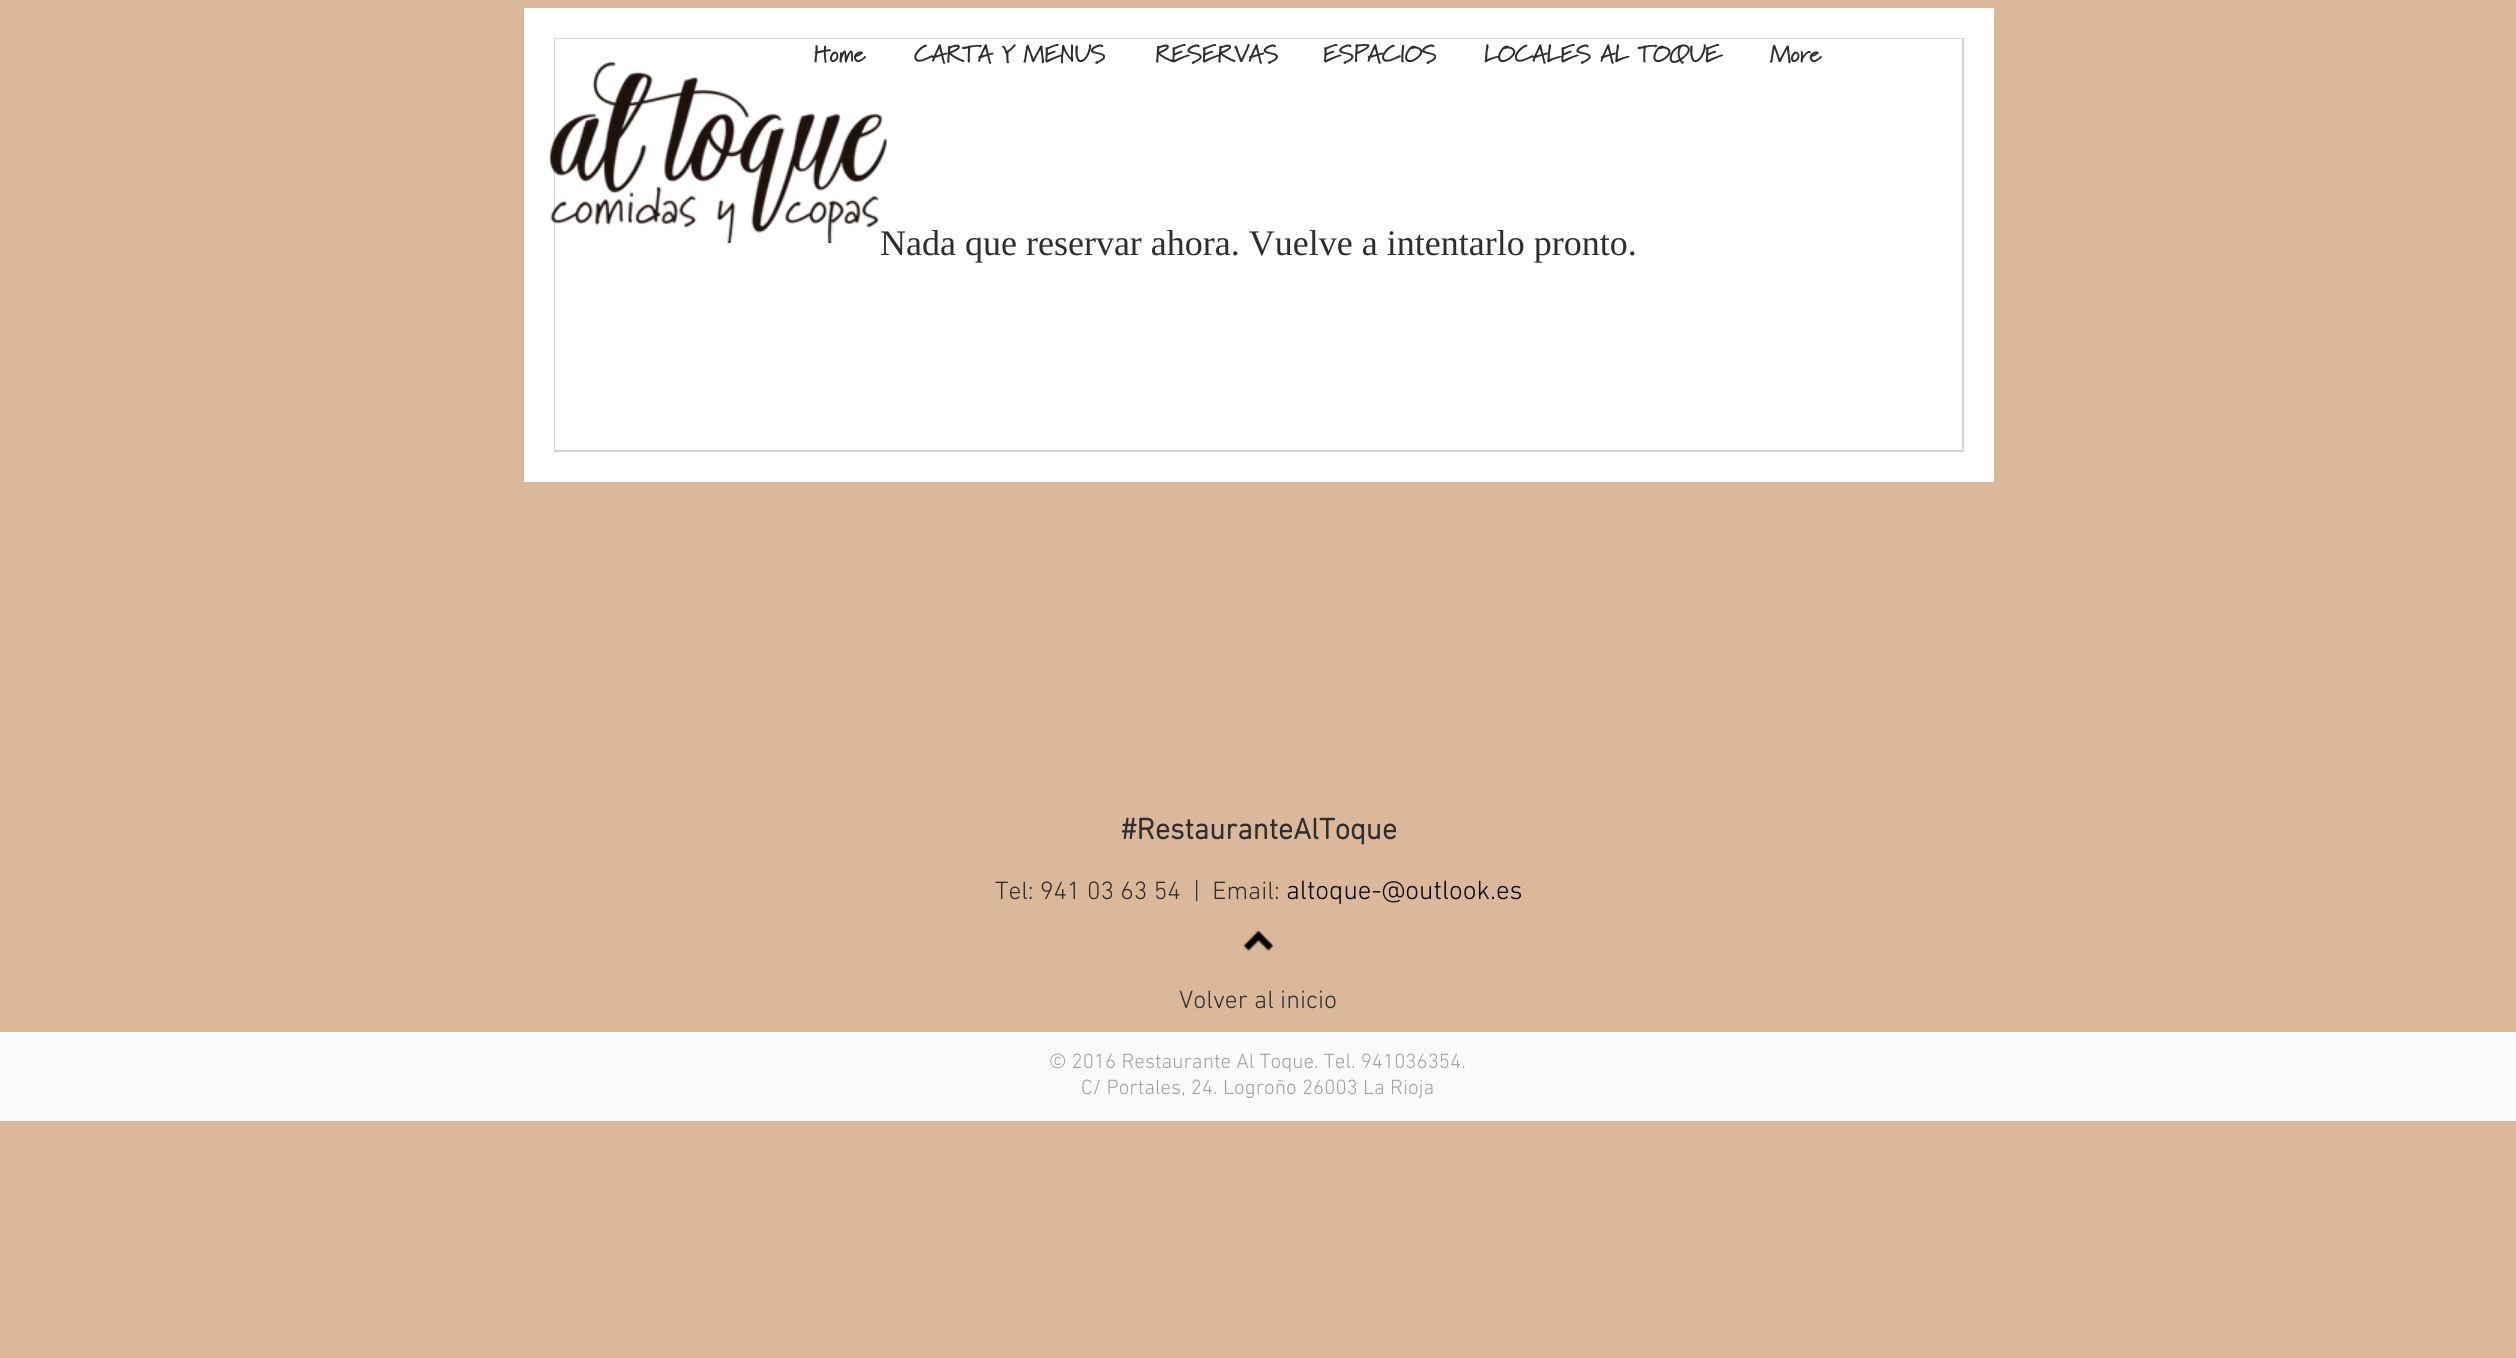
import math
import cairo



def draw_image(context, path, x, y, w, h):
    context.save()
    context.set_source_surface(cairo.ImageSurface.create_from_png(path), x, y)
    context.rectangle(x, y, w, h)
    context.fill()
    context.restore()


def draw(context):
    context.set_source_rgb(219 / 255, 184 / 255, 154 / 255)
    context.paint()
    context.set_source_rgb(1, 1, 1)
    context.rectangle(524, 8, 1470, 474)
    context.fill()
    context.rectangle(555, 39, 1408, 412)
    context.set_source_rgb(213 / 255, 213 / 255, 213 / 255)
    context.stroke()
    context.set_source_rgb(1, 1, 1)
    context.rectangle(555, 39, 1407, 411)
    context.fill()
    draw_image(context, "images/2.png", 1243, 930, 31, 22)
    context.set_source_rgb(250 / 255, 250 / 255, 250 / 255)
    context.rectangle(0, 1032, 2516, 89)
    context.fill()
    context.select_font_face("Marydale", cairo.FontSlant.NORMAL, cairo.FontWeight.BOLD)
    context.set_font_size(24)
    context.set_source_rgb(47 / 255, 46 / 255, 46 / 255)
    context.move_to(914, 62)
    context.show_text("CARTA Y MENUS")
    context.move_to(1155, 62)
    context.show_text("RESERVAS")
    context.move_to(1323, 62)
    context.show_text("ESPACIOS")
    context.move_to(1484, 62)
    context.show_text("LOCALES AL TOQUE")
    context.move_to(1770, 62)
    context.show_text("More")
    context.select_font_face("Liberation Serif")
    context.set_font_size(36)
    context.move_to(880, 255)
    context.show_text("Nada que reservar ahora. Vuelve a intentarlo pronto.")
    draw_image(context, "images/1.png", 549, 61, 338, 182)
    context.select_font_face("Marydale", cairo.FontSlant.NORMAL, cairo.FontWeight.BOLD)
    context.set_font_size(24)
    context.move_to(813, 62)
    context.show_text("Home")
    context.select_font_face("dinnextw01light", cairo.FontSlant.NORMAL, cairo.FontWeight.BOLD)
    context.set_font_size(30)
    context.move_to(1121, 839)
    context.show_text("#RestauranteAlToque")
    context.select_font_face("dinnextw01light Light")
    context.set_font_size(25.5)
    context.move_to(995, 899)
    context.show_text("Tel: 941 03 63 54  |  Email:")
    context.set_font_size(27)
    context.set_source_rgb(0, 0, 0)
    context.move_to(1286, 899)
    context.show_text("altoque-@outlook.es")
    context.set_font_size(25.5)
    context.set_source_rgb(47 / 255, 46 / 255, 46 / 255)
    context.move_to(1179, 1008)
    context.show_text("Volver al inicio")
    context.set_font_size(21)
    context.set_source_rgb(160 / 255, 160 / 255, 159 / 255)
    context.move_to(1049, 1068)
    context.show_text("© 2016 Restaurante Al Toque. Tel. 941036354.")
    context.move_to(1081, 1094)
    context.show_text("C/ Portales, 24. Logroño 26003 La Rioja")


surface = cairo.ImageSurface(cairo.Format.RGB24, 2516, 1358)
context = cairo.Context(surface)
options = cairo.FontOptions()
options.set_hint_metrics(cairo.HintMetrics.OFF)
options.set_hint_style(cairo.HintStyle.NONE)
context.set_font_options(options)
context.set_miter_limit(4)
draw(context)
surface.write_to_png("out.png")
